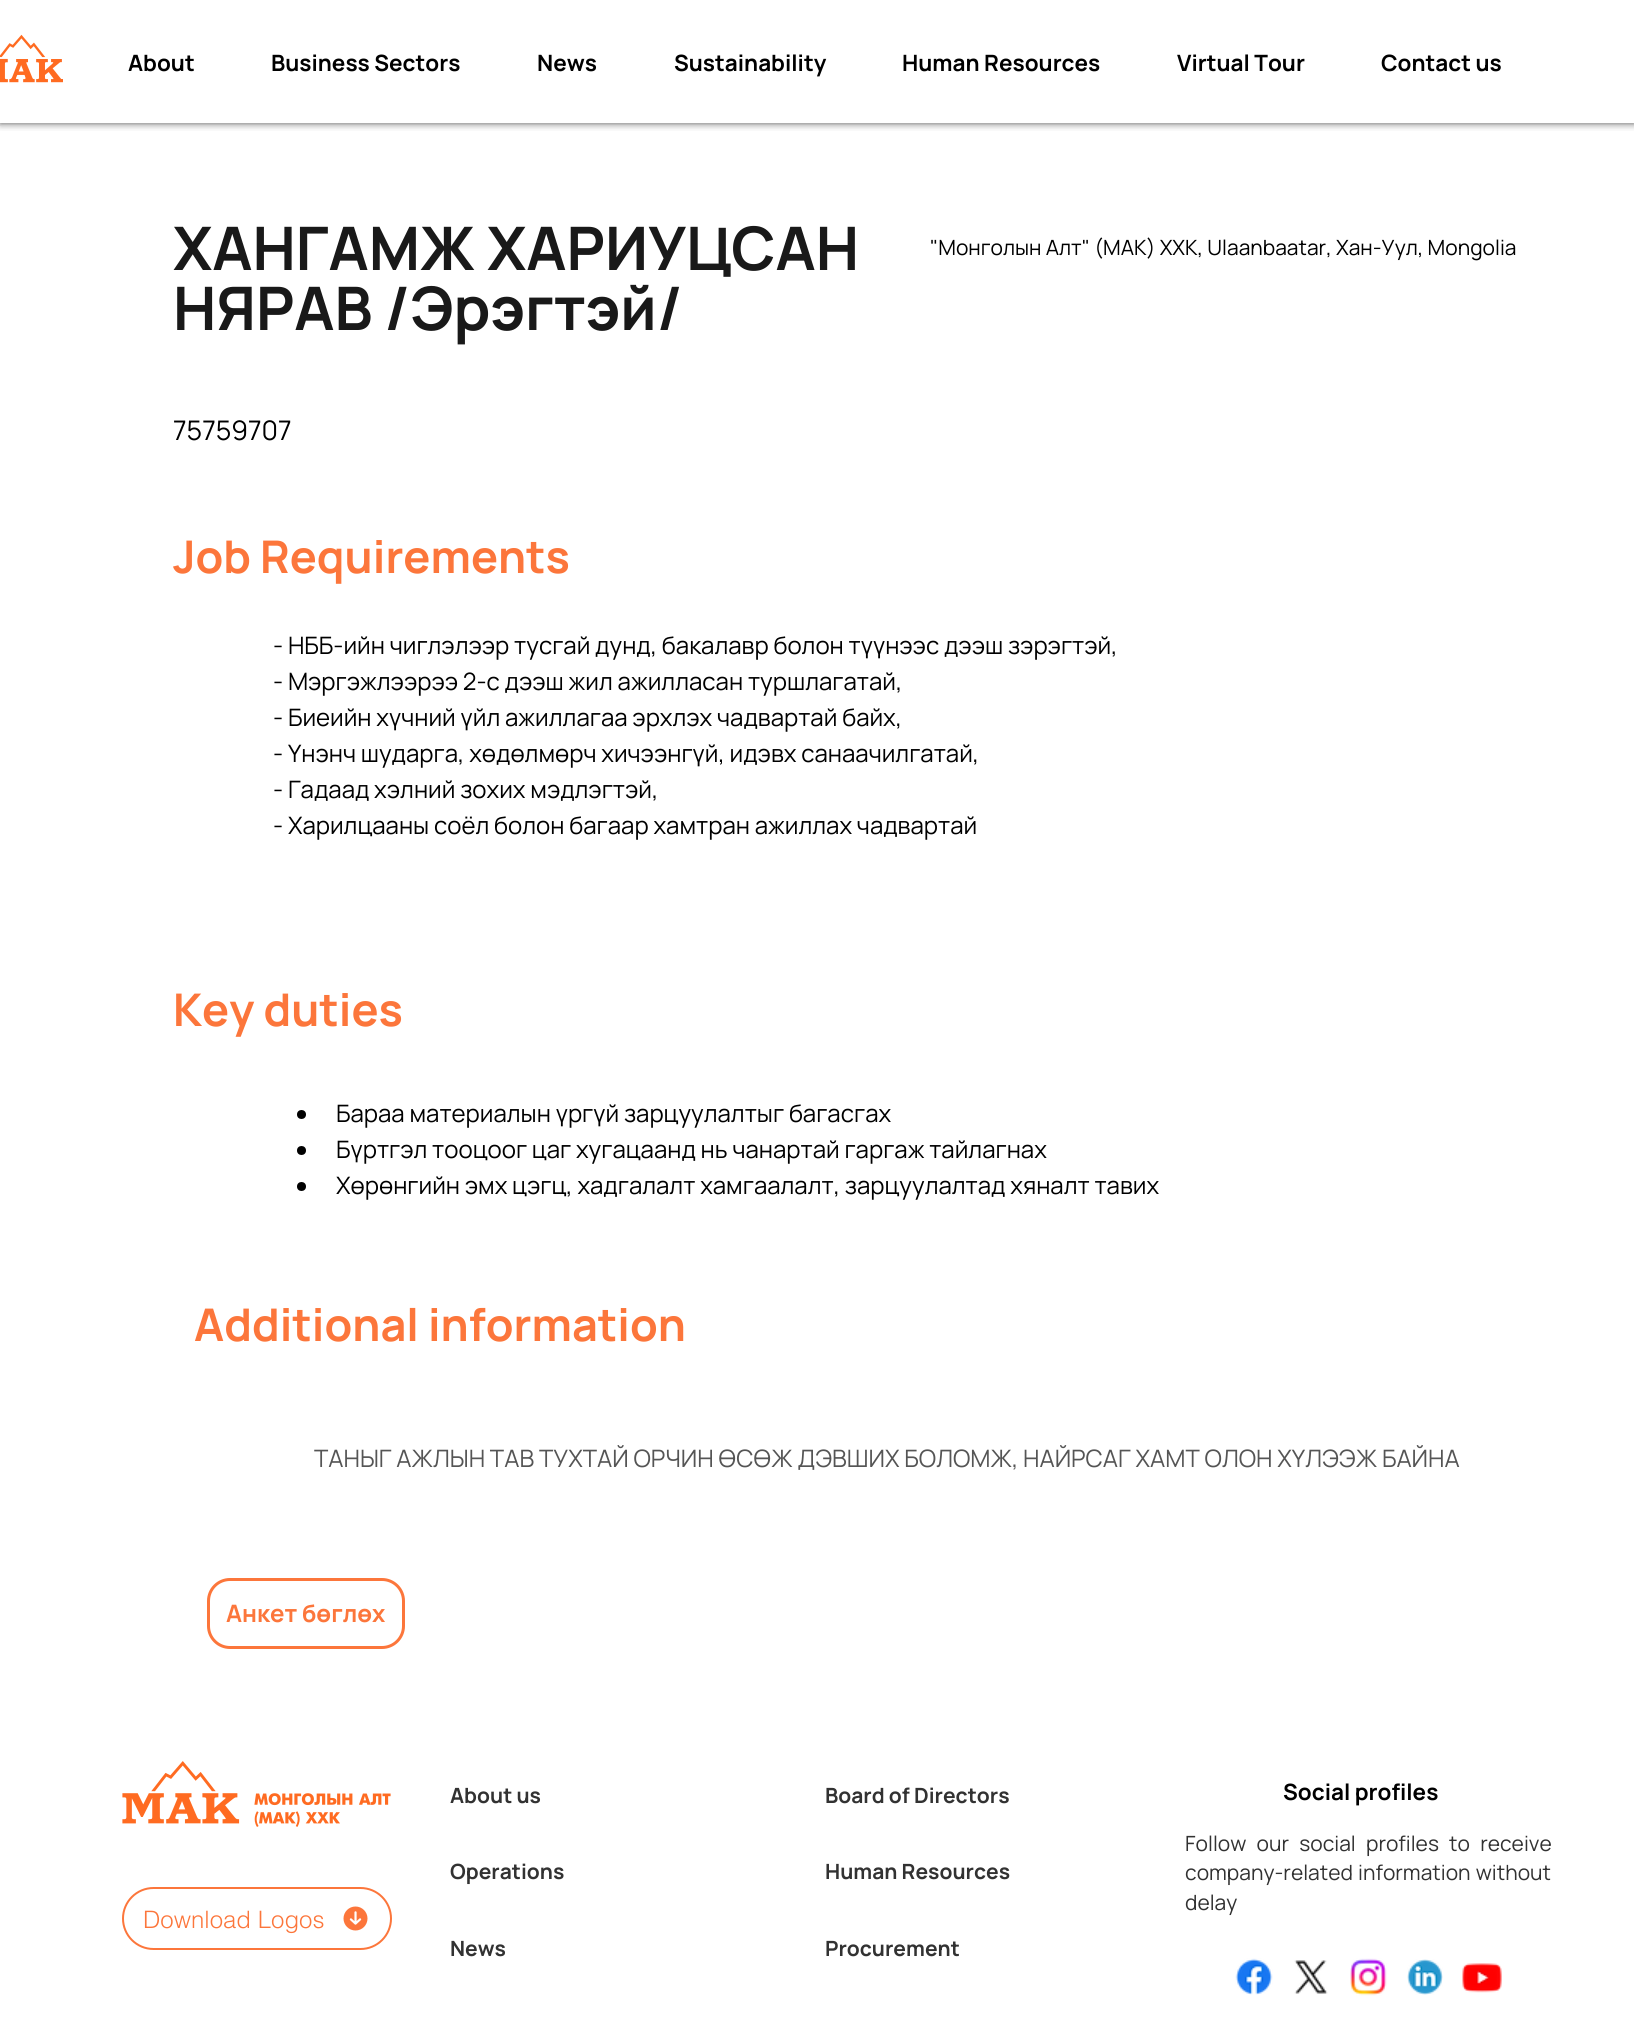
import math
import cairo



def draw_spaced(context, x, y, s, letter, word):
    context.move_to(x, y)
    for ch in s:
        context.show_text(ch)
        context.rel_move_to(letter + word * (ch == ' '), 0)


def rounded_rect(context, x, y, w, h, r):
    context.new_sub_path()
    for i, (u, v) in enumerate([(x + w - r, y + h - r), (x + r, y + h - r), (x + r, y + r), (x + w - r, y + r)]):
        context.arc(u, v, r, i * math.pi / 2, (i + 1) * math.pi / 2)
    context.close_path()


def draw_shadow(context, x, y, w, h, r, blur, alpha):
    context.push_group_with_content(cairo.Content.ALPHA)
    context.set_operator(cairo.Operator.SOURCE)
    for i in range(15, -16, -2):
        e = blur * i / 6
        if min(w, h) + 2 * e > 0:
            context.set_source_rgba(0, 0, 0, alpha * math.erfc((i - 1) / 8.5) / 2)
            rounded_rect(context, x - e, y - e, w + 2 * e, h + 2 * e, max(0, min(r + e + blur * .6, min(w, h) / 2 + e)))
            context.fill()
    context.mask(context.pop_group())


def draw_image(context, path, x, y, w, h):
    context.save()
    context.set_source_surface(cairo.ImageSurface.create_from_png(path), x, y)
    context.rectangle(x, y, w, h)
    context.fill()
    context.restore()


def draw(context):
    context.set_source_rgb(1, 1, 1)
    context.paint()
    context.save()
    context.rectangle(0, 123, 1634, 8)
    context.clip()
    context.set_source_rgb(0, 0, 0)
    draw_shadow(context, 0, 0, 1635, 123, 0, 4, 0.7)
    context.restore()
    draw_image(context, "images/1.png", 0, 34, 63, 49)
    context.set_source_rgb(0, 0, 0)
    context.arc(301.5, 1114.5, 4.5, 0, 2 * math.pi)
    context.fill()
    context.arc(301.5, 1150.5, 4.5, 0, 2 * math.pi)
    context.fill()
    context.arc(301.5, 1186.5, 4.5, 0, 2 * math.pi)
    context.fill()
    rounded_rect(context, 208.5, 1579.5, 195, 68, 21.5)
    context.set_source_rgb(252 / 255, 118 / 255, 59 / 255)
    context.set_line_width(3)
    context.stroke()
    draw_image(context, "images/2.png", 122, 1761, 269, 66)
    rounded_rect(context, 123, 1888, 268, 61, 30.5)
    context.set_line_width(2)
    context.stroke()
    draw_image(context, "images/3.png", 343, 1906, 25, 25)
    draw_image(context, "images/4.png", 1235, 1958, 38, 37)
    draw_image(context, "images/5.png", 1294, 1960, 34, 34)
    draw_image(context, "images/6.png", 1350, 1958, 37, 38)
    draw_image(context, "images/7.png", 1407, 1959, 36, 36)
    draw_image(context, "images/8.png", 1462, 1963, 40, 30)
    context.select_font_face("Manrope", cairo.FontSlant.NORMAL, cairo.FontWeight.BOLD)
    context.set_font_size(22.5)
    context.set_source_rgb(0, 0, 0)
    context.move_to(128, 71)
    context.show_text("About")
    context.move_to(271, 71)
    context.show_text("Business Sectors")
    context.move_to(537, 71)
    context.show_text("News")
    context.move_to(674, 71)
    context.show_text("Sustainability")
    context.move_to(902, 71)
    context.show_text("Human Resources")
    context.move_to(1177, 71)
    context.show_text("Virtual Tour")
    context.move_to(1381, 71)
    context.show_text("Contact us")
    context.set_font_size(60)
    context.set_source_rgb(25 / 255, 25 / 255, 25 / 255)
    context.move_to(173, 270)
    context.show_text("ХАНГАМЖ ХАРИУЦСАН")
    context.move_to(173, 330)
    context.show_text("НЯРАВ /Эрэгтэй/")
    context.select_font_face("Manrope")
    context.set_font_size(21)
    context.set_source_rgb(0, 0, 0)
    context.move_to(930, 255)
    context.show_text("\"Монголын Алт\" (МАК) ХХК, Ulaanbaatar, Хан-Уул, Mongolia")
    context.set_font_size(27)
    context.move_to(173, 440)
    context.show_text("75759707")
    context.select_font_face("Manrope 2", cairo.FontSlant.NORMAL, cairo.FontWeight.BOLD)
    context.set_font_size(45)
    context.set_source_rgb(252 / 255, 118 / 255, 59 / 255)
    context.move_to(173, 573)
    context.show_text("Job Requirements")
    context.select_font_face("Manrope")
    context.set_font_size(24)
    context.set_source_rgb(0, 0, 0)
    context.move_to(273, 654)
    context.show_text("- НББ-ийн чиглэлээр тусгай дунд, бакалавр болон түүнээс дээш зэрэгтэй,")
    context.move_to(273, 690)
    context.show_text("- Мэргэжлээрээ 2-с дээш жил ажилласан туршлагатай,")
    context.move_to(273, 726)
    context.show_text("- Биеийн хүчний үйл ажиллагаа эрхлэх чадвартай байх,")
    context.move_to(273, 762)
    context.show_text("- Үнэнч шударга, хөдөлмөрч хичээнгүй, идэвх санаачилгатай,")
    context.move_to(273, 798)
    context.show_text("- Гадаад хэлний зохих мэдлэгтэй,")
    context.move_to(273, 834)
    context.show_text("- Харилцааны соёл болон багаар хамтран ажиллах чадвартай")
    context.select_font_face("Manrope 2", cairo.FontSlant.NORMAL, cairo.FontWeight.BOLD)
    context.set_font_size(45)
    context.set_source_rgb(252 / 255, 118 / 255, 59 / 255)
    context.move_to(173, 1026)
    context.show_text("Key duties")
    context.select_font_face("Manrope")
    context.set_font_size(24)
    context.set_source_rgb(0, 0, 0)
    context.move_to(336, 1122)
    context.show_text("Бараа материалын үргүй зарцуулалтыг багасгах")
    context.move_to(336, 1158)
    context.show_text("Бүртгэл тооцоог цаг хугацаанд нь чанартай гаргаж тайлагнах")
    context.move_to(336, 1194)
    context.show_text("Хөрөнгийн эмх цэгц, хадгалалт хамгаалалт, зарцуулалтад хяналт тавих")
    context.select_font_face("Manrope 2", cairo.FontSlant.NORMAL, cairo.FontWeight.BOLD)
    context.set_font_size(45)
    context.set_source_rgb(252 / 255, 118 / 255, 59 / 255)
    context.move_to(194, 1341)
    context.show_text("Additional information")
    context.select_font_face("Manrope")
    context.set_font_size(24)
    context.set_source_rgb(85 / 255, 85 / 255, 85 / 255)
    context.move_to(314, 1467)
    context.show_text("ТАНЫГ АЖЛЫН ТАВ ТУХТАЙ ОРЧИН ӨСӨЖ ДЭВШИХ БОЛОМЖ, НАЙРСАГ ХАМТ ОЛОН ХҮЛЭЭЖ БАЙНА")
    context.select_font_face("Manrope", cairo.FontSlant.NORMAL, cairo.FontWeight.BOLD)
    context.set_source_rgb(252 / 255, 118 / 255, 59 / 255)
    context.move_to(226, 1622)
    context.show_text("Анкет бөглөх")
    context.select_font_face("helvetica Light")
    context.move_to(143, 1928)
    context.show_text("Download Logos")
    context.select_font_face("Manrope", cairo.FontSlant.NORMAL, cairo.FontWeight.BOLD)
    context.set_font_size(21)
    context.set_source_rgb(50 / 255, 50 / 255, 50 / 255)
    context.move_to(450, 1803)
    context.show_text("About us")
    context.move_to(450, 1879)
    context.show_text("Operations")
    context.move_to(450, 1956)
    context.show_text("News")
    context.move_to(825, 1803)
    context.show_text("Board of Directors")
    context.move_to(825, 1879)
    context.show_text("Human Resources")
    context.move_to(825, 1956)
    context.show_text("Procurement")
    context.set_font_size(22.5)
    context.set_source_rgb(0, 0, 0)
    context.move_to(1283, 1800)
    context.show_text("Social profiles")
    context.select_font_face("Manrope")
    context.set_font_size(21)
    context.set_source_rgb(50 / 255, 50 / 255, 50 / 255)
    draw_spaced(context, 1185, 1851, "Follow our social profiles to receive", 0, 6)
    draw_spaced(context, 1185, 1880, "company-related information without", 0, 1)
    context.move_to(1185, 1910)
    context.show_text("delay")


surface = cairo.ImageSurface(cairo.Format.RGB24, 1634, 2020)
context = cairo.Context(surface)
options = cairo.FontOptions()
options.set_hint_metrics(cairo.HintMetrics.OFF)
options.set_hint_style(cairo.HintStyle.NONE)
context.set_font_options(options)
context.set_miter_limit(4)
draw(context)
surface.write_to_png("out.png")
